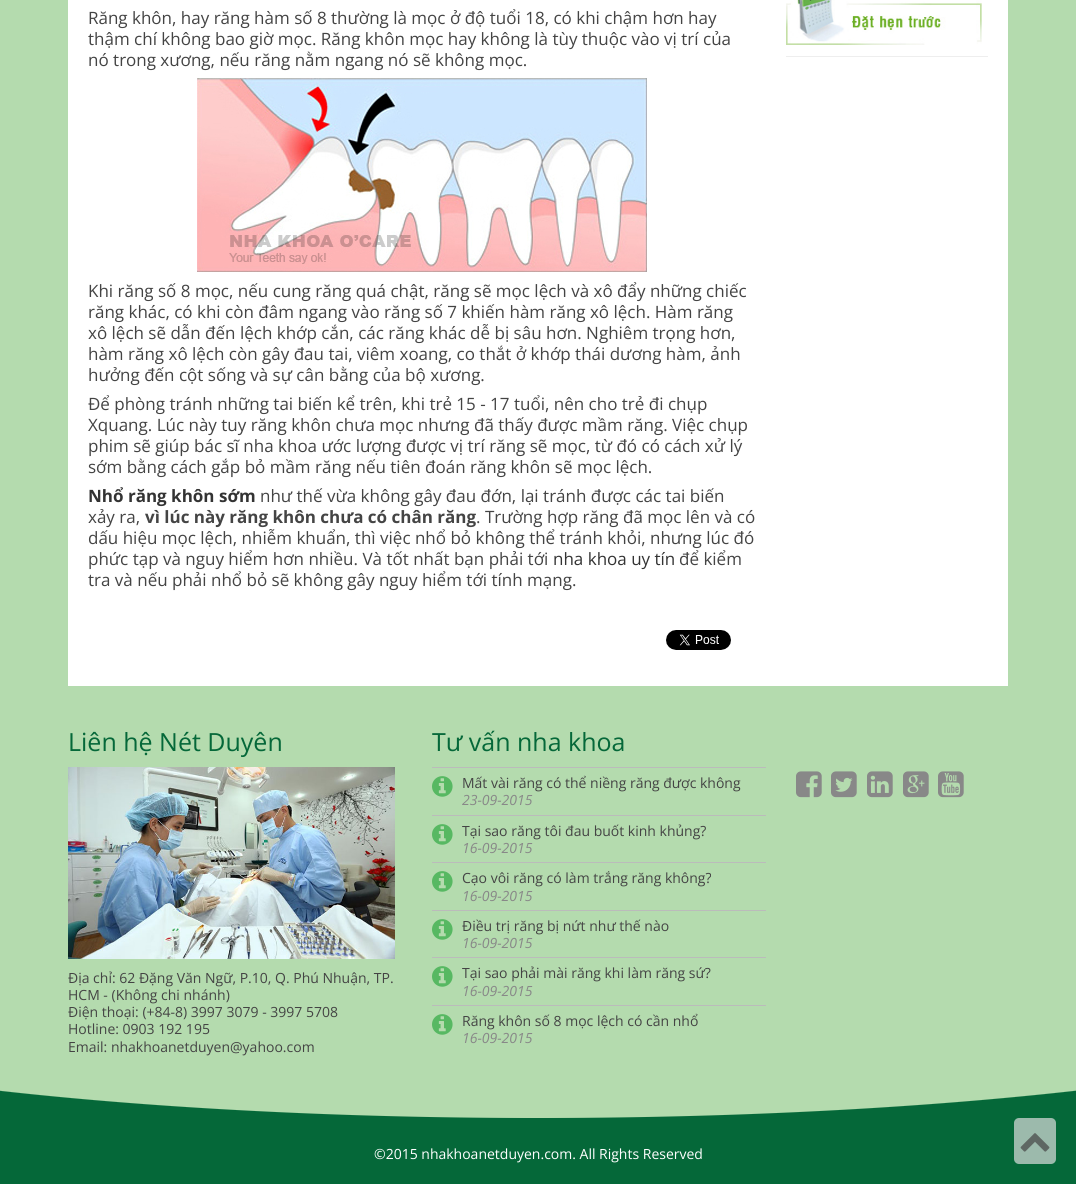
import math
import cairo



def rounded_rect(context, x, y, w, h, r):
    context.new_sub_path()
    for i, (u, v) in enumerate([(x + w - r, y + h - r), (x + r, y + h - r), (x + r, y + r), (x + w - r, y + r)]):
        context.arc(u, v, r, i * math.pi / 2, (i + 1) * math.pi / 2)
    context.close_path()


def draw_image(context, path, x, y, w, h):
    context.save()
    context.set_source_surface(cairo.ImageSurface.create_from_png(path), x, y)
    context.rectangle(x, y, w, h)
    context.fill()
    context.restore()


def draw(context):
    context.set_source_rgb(180 / 255, 219 / 255, 174 / 255)
    context.paint()
    context.set_source_rgb(1, 1, 1)
    context.rectangle(68, 0, 940, 686)
    context.fill()
    draw_image(context, "images/1.png", 197, 78, 450, 194)
    draw_image(context, "images/2.png", 666, 630, 65, 20)
    context.set_source_rgb(238 / 255, 238 / 255, 238 / 255)
    context.rectangle(786, 56, 202, 1)
    context.fill()
    draw_image(context, "images/3.png", 786, 0, 196, 45)
    draw_image(context, "images/4.png", 0, 1090, 1076, 54)
    context.set_source_rgb(5 / 255, 104 / 255, 57 / 255)
    context.rectangle(0, 1144, 1076, 40)
    context.fill()
    draw_image(context, "images/5.png", 68, 767, 327, 192)
    context.set_source_rgb(187 / 255, 187 / 255, 187 / 255)
    context.rectangle(432, 767, 334, 1)
    context.fill()
    draw_image(context, "images/6.png", 432, 776, 21, 21)
    context.rectangle(432, 815, 334, 1)
    context.fill()
    draw_image(context, "images/6.png", 432, 824, 21, 21)
    context.rectangle(432, 862, 334, 1)
    context.fill()
    draw_image(context, "images/6.png", 432, 871, 21, 21)
    context.rectangle(432, 910, 334, 1)
    context.fill()
    draw_image(context, "images/6.png", 432, 919, 21, 21)
    context.rectangle(432, 957, 334, 1)
    context.fill()
    draw_image(context, "images/6.png", 432, 966, 21, 21)
    context.rectangle(432, 1005, 334, 1)
    context.fill()
    draw_image(context, "images/6.png", 432, 1014, 21, 21)
    draw_image(context, "images/7.png", 796, 771, 26, 27)
    draw_image(context, "images/8.png", 831, 771, 26, 27)
    draw_image(context, "images/9.png", 867, 771, 26, 27)
    draw_image(context, "images/10.png", 903, 771, 26, 27)
    draw_image(context, "images/11.png", 938, 771, 26, 27)
    context.set_source_rgb(156 / 255, 186 / 255, 172 / 255)
    rounded_rect(context, 1014, 1118, 42, 46, 5)
    context.fill()
    draw_image(context, "images/12.png", 1020, 1133, 30, 19)
    context.select_font_face("Open Sans")
    context.set_font_size(17)
    context.set_source_rgb(68 / 255, 68 / 255, 68 / 255)
    context.move_to(88, 24)
    context.show_text("Răng khôn, hay răng hàm số 8 thường là mọc ở độ tuổi 18, có khi chậm hơn hay")
    context.move_to(88, 45)
    context.show_text("thậm chí không bao giờ mọc. Răng khôn mọc hay không là tùy thuộc vào vị trí của")
    context.move_to(88, 66)
    context.show_text("nó trong xương, nếu răng nằm ngang nó sẽ không mọc.")
    context.move_to(88, 297)
    context.show_text("Khi răng số 8 mọc, nếu cung răng quá chật, răng sẽ mọc lệch và xô đẩy những chiếc")
    context.move_to(88, 318)
    context.show_text("răng khác, có khi còn đâm ngang vào răng số 7 khiến hàm răng xô lệch. Hàm răng")
    context.move_to(88, 339)
    context.show_text("xô lệch sẽ dẫn đến lệch khớp cắn, các răng khác dễ bị sâu hơn. Nghiêm trọng hơn,")
    context.move_to(88, 360)
    context.show_text("hàm răng xô lệch còn gây đau tai, viêm xoang, co thắt ở khớp thái dương hàm, ảnh")
    context.move_to(88, 381)
    context.show_text("hưởng đến cột sống và sự cân bằng của bộ xương.")
    context.move_to(88, 410)
    context.show_text("Để phòng tránh những tai biến kể trên, khi trẻ 15 - 17 tuổi, nên cho trẻ đi chụp")
    context.move_to(88, 431)
    context.show_text("Xquang. Lúc này tuy răng khôn chưa mọc nhưng đã thấy được mầm răng. Việc chụp")
    context.move_to(88, 452)
    context.show_text("phim sẽ giúp bác sĩ nha khoa ước lượng được vị trí răng sẽ mọc, từ đó có cách xử lý")
    context.move_to(88, 473)
    context.show_text("sớm bằng cách gắp bỏ mầm răng nếu tiên đoán răng khôn sẽ mọc lệch.")
    context.select_font_face("Open Sans", cairo.FontSlant.NORMAL, cairo.FontWeight.BOLD)
    context.set_source_rgb(51 / 255, 51 / 255, 51 / 255)
    context.move_to(88, 502)
    context.show_text("Nhổ răng khôn sớm")
    context.select_font_face("Open Sans")
    context.set_source_rgb(68 / 255, 68 / 255, 68 / 255)
    context.move_to(260, 502)
    context.show_text("như thế vừa không gây đau đớn, lại tránh được các tai biến")
    context.move_to(88, 523)
    context.show_text("xảy ra,")
    context.select_font_face("Open Sans", cairo.FontSlant.NORMAL, cairo.FontWeight.BOLD)
    context.move_to(145, 523)
    context.show_text("vì lúc này răng khôn chưa có chân răng")
    context.select_font_face("Open Sans")
    context.move_to(476, 523)
    context.show_text(". Trường hợp răng đã mọc lên và có")
    context.move_to(88, 544)
    context.show_text("dấu hiệu mọc lệch, nhiễm khuẩn, thì việc nhổ bỏ không thể tránh khỏi, nhưng lúc đó")
    context.move_to(88, 565)
    context.show_text("phức tạp và nguy hiểm hơn nhiều. Và tốt nhất bạn phải tới")
    context.set_source_rgb(51 / 255, 51 / 255, 51 / 255)
    context.move_to(553, 565)
    context.show_text("nha khoa uy tín")
    context.set_source_rgb(68 / 255, 68 / 255, 68 / 255)
    context.move_to(679, 565)
    context.show_text("để kiểm")
    context.move_to(88, 586)
    context.show_text("tra và nếu phải nhổ bỏ sẽ không gây nguy hiểm tới tính mạng.")
    context.set_font_size(25)
    context.set_source_rgb(5 / 255, 104 / 255, 57 / 255)
    context.move_to(68, 751)
    context.show_text("Liên hệ Nét Duyên")
    context.set_font_size(14)
    context.set_source_rgb(68 / 255, 68 / 255, 68 / 255)
    context.move_to(68, 983)
    context.show_text("Địa chỉ: 62 Đặng Văn Ngữ, P.10, Q. Phú Nhuận, TP.")
    context.move_to(68, 1000)
    context.show_text("HCM - (Không chi nhánh)")
    context.move_to(68, 1017)
    context.show_text("Điện thoại: (+84-8) 3997 3079 - 3997 5708")
    context.move_to(68, 1034)
    context.show_text("Hotline: 0903 192 195")
    context.move_to(68, 1052)
    context.show_text("Email: nhakhoanetduyen@yahoo.com")
    context.set_font_size(25)
    context.set_source_rgb(5 / 255, 104 / 255, 57 / 255)
    context.move_to(432, 751)
    context.show_text("Tư vấn nha khoa")
    context.set_font_size(14)
    context.set_source_rgb(68 / 255, 68 / 255, 68 / 255)
    context.move_to(462, 788)
    context.show_text("Mất vài răng có thể niềng răng được không")
    context.select_font_face("Open Sans", cairo.FontSlant.ITALIC)
    context.set_source_rgb(136 / 255, 136 / 255, 136 / 255)
    context.move_to(462, 805)
    context.show_text("23-09-2015")
    context.select_font_face("Open Sans")
    context.set_source_rgb(68 / 255, 68 / 255, 68 / 255)
    context.move_to(462, 836)
    context.show_text("Tại sao răng tôi đau buốt kinh khủng?")
    context.select_font_face("Open Sans", cairo.FontSlant.ITALIC)
    context.set_source_rgb(136 / 255, 136 / 255, 136 / 255)
    context.move_to(462, 853)
    context.show_text("16-09-2015")
    context.select_font_face("Open Sans")
    context.set_source_rgb(68 / 255, 68 / 255, 68 / 255)
    context.move_to(462, 883)
    context.show_text("Cạo vôi răng có làm trắng răng không?")
    context.select_font_face("Open Sans", cairo.FontSlant.ITALIC)
    context.set_source_rgb(136 / 255, 136 / 255, 136 / 255)
    context.move_to(462, 901)
    context.show_text("16-09-2015")
    context.select_font_face("Open Sans")
    context.set_source_rgb(68 / 255, 68 / 255, 68 / 255)
    context.move_to(462, 931)
    context.show_text("Điều trị răng bị nứt như thế nào")
    context.select_font_face("Open Sans", cairo.FontSlant.ITALIC)
    context.set_source_rgb(136 / 255, 136 / 255, 136 / 255)
    context.move_to(462, 948)
    context.show_text("16-09-2015")
    context.select_font_face("Open Sans")
    context.set_source_rgb(68 / 255, 68 / 255, 68 / 255)
    context.move_to(462, 978)
    context.show_text("Tại sao phải mài răng khi làm răng sứ?")
    context.select_font_face("Open Sans", cairo.FontSlant.ITALIC)
    context.set_source_rgb(136 / 255, 136 / 255, 136 / 255)
    context.move_to(462, 996)
    context.show_text("16-09-2015")
    context.select_font_face("Open Sans")
    context.set_source_rgb(68 / 255, 68 / 255, 68 / 255)
    context.move_to(462, 1026)
    context.show_text("Răng khôn số 8 mọc lệch có cần nhổ")
    context.select_font_face("Open Sans", cairo.FontSlant.ITALIC)
    context.set_source_rgb(136 / 255, 136 / 255, 136 / 255)
    context.move_to(462, 1043)
    context.show_text("16-09-2015")
    context.select_font_face("Open Sans")
    context.set_source_rgb(1, 1, 1)
    context.move_to(374, 1159)
    context.show_text("©2015 nhakhoanetduyen.com. All Rights Reserved")


surface = cairo.ImageSurface(cairo.Format.RGB24, 1076, 1184)
context = cairo.Context(surface)
options = cairo.FontOptions()
options.set_hint_metrics(cairo.HintMetrics.OFF)
options.set_hint_style(cairo.HintStyle.NONE)
context.set_font_options(options)
context.set_miter_limit(4)
draw(context)
surface.write_to_png("out.png")
